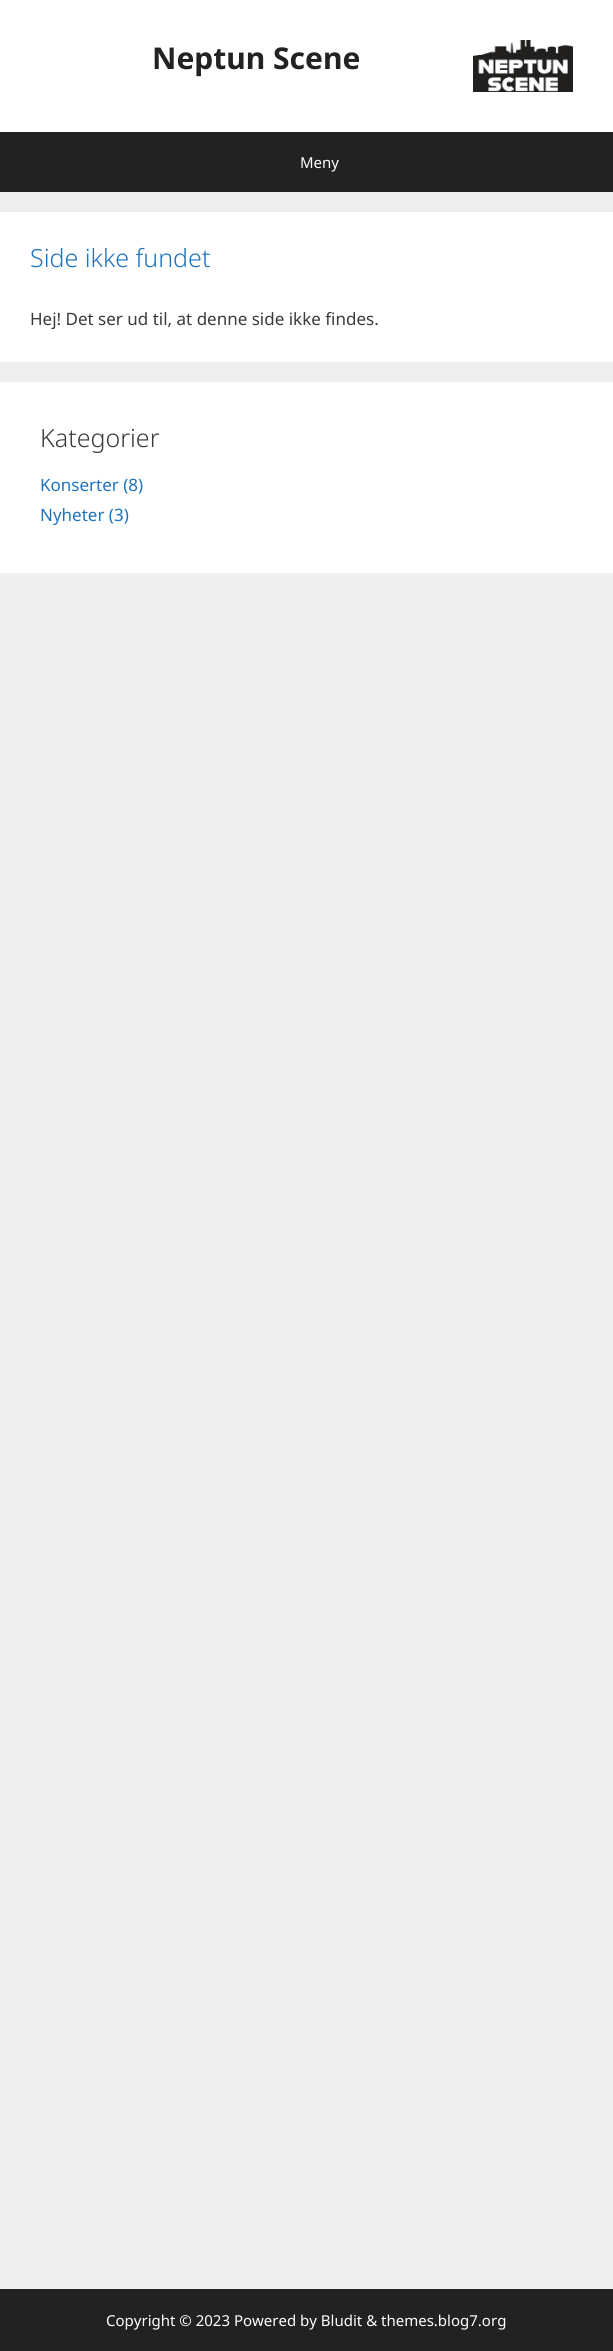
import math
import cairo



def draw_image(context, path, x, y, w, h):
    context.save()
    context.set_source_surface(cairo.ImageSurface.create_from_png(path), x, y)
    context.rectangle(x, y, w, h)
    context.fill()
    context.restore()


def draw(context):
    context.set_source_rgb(239 / 255, 239 / 255, 239 / 255)
    context.paint()
    context.set_source_rgb(1, 1, 1)
    context.rectangle(0, 0, 613, 132)
    context.fill()
    draw_image(context, "images/1.png", 473, 40, 100, 52)
    context.set_source_rgb(34 / 255, 34 / 255, 34 / 255)
    context.rectangle(0, 132, 613, 60)
    context.fill()
    context.set_source_rgb(1, 1, 1)
    context.rectangle(0, 212, 613, 150)
    context.fill()
    context.rectangle(0, 382, 613, 191)
    context.fill()
    context.set_source_rgb(34 / 255, 34 / 255, 34 / 255)
    context.rectangle(0, 2289, 613, 62)
    context.fill()
    context.select_font_face("Noto Sans", cairo.FontSlant.NORMAL, cairo.FontWeight.BOLD)
    context.set_font_size(30)
    context.move_to(152, 69)
    context.show_text("Neptun Scene")
    context.select_font_face("Noto Sans")
    context.set_font_size(15)
    context.set_source_rgb(1, 1, 1)
    context.move_to(300, 168)
    context.show_text("Meny")
    context.select_font_face("Noto Sans Light")
    context.set_font_size(25)
    context.set_source_rgb(30 / 255, 115 / 255, 190 / 255)
    context.move_to(30, 267)
    context.show_text("Side ikke fundet")
    context.select_font_face("Noto Sans")
    context.set_font_size(17)
    context.set_source_rgb(58 / 255, 58 / 255, 58 / 255)
    context.move_to(30, 325)
    context.show_text("Hej! Det ser ud til, at denne side ikke findes.")
    context.select_font_face("Noto Sans Light")
    context.set_font_size(25)
    context.move_to(40, 447)
    context.show_text("Kategorier")
    context.select_font_face("Noto Sans")
    context.set_font_size(17)
    context.set_source_rgb(30 / 255, 115 / 255, 190 / 255)
    context.move_to(40, 491)
    context.show_text("Konserter (8)")
    context.move_to(40, 521)
    context.show_text("Nyheter (3)")
    context.set_font_size(15)
    context.set_source_rgb(1, 1, 1)
    context.move_to(106, 2326)
    context.show_text("Copyright © 2023 Powered by Bludit & themes.blog7.org")


surface = cairo.ImageSurface(cairo.Format.RGB24, 613, 2351)
context = cairo.Context(surface)
options = cairo.FontOptions()
options.set_hint_metrics(cairo.HintMetrics.OFF)
options.set_hint_style(cairo.HintStyle.NONE)
context.set_font_options(options)
context.set_miter_limit(4)
draw(context)
surface.write_to_png("out.png")
